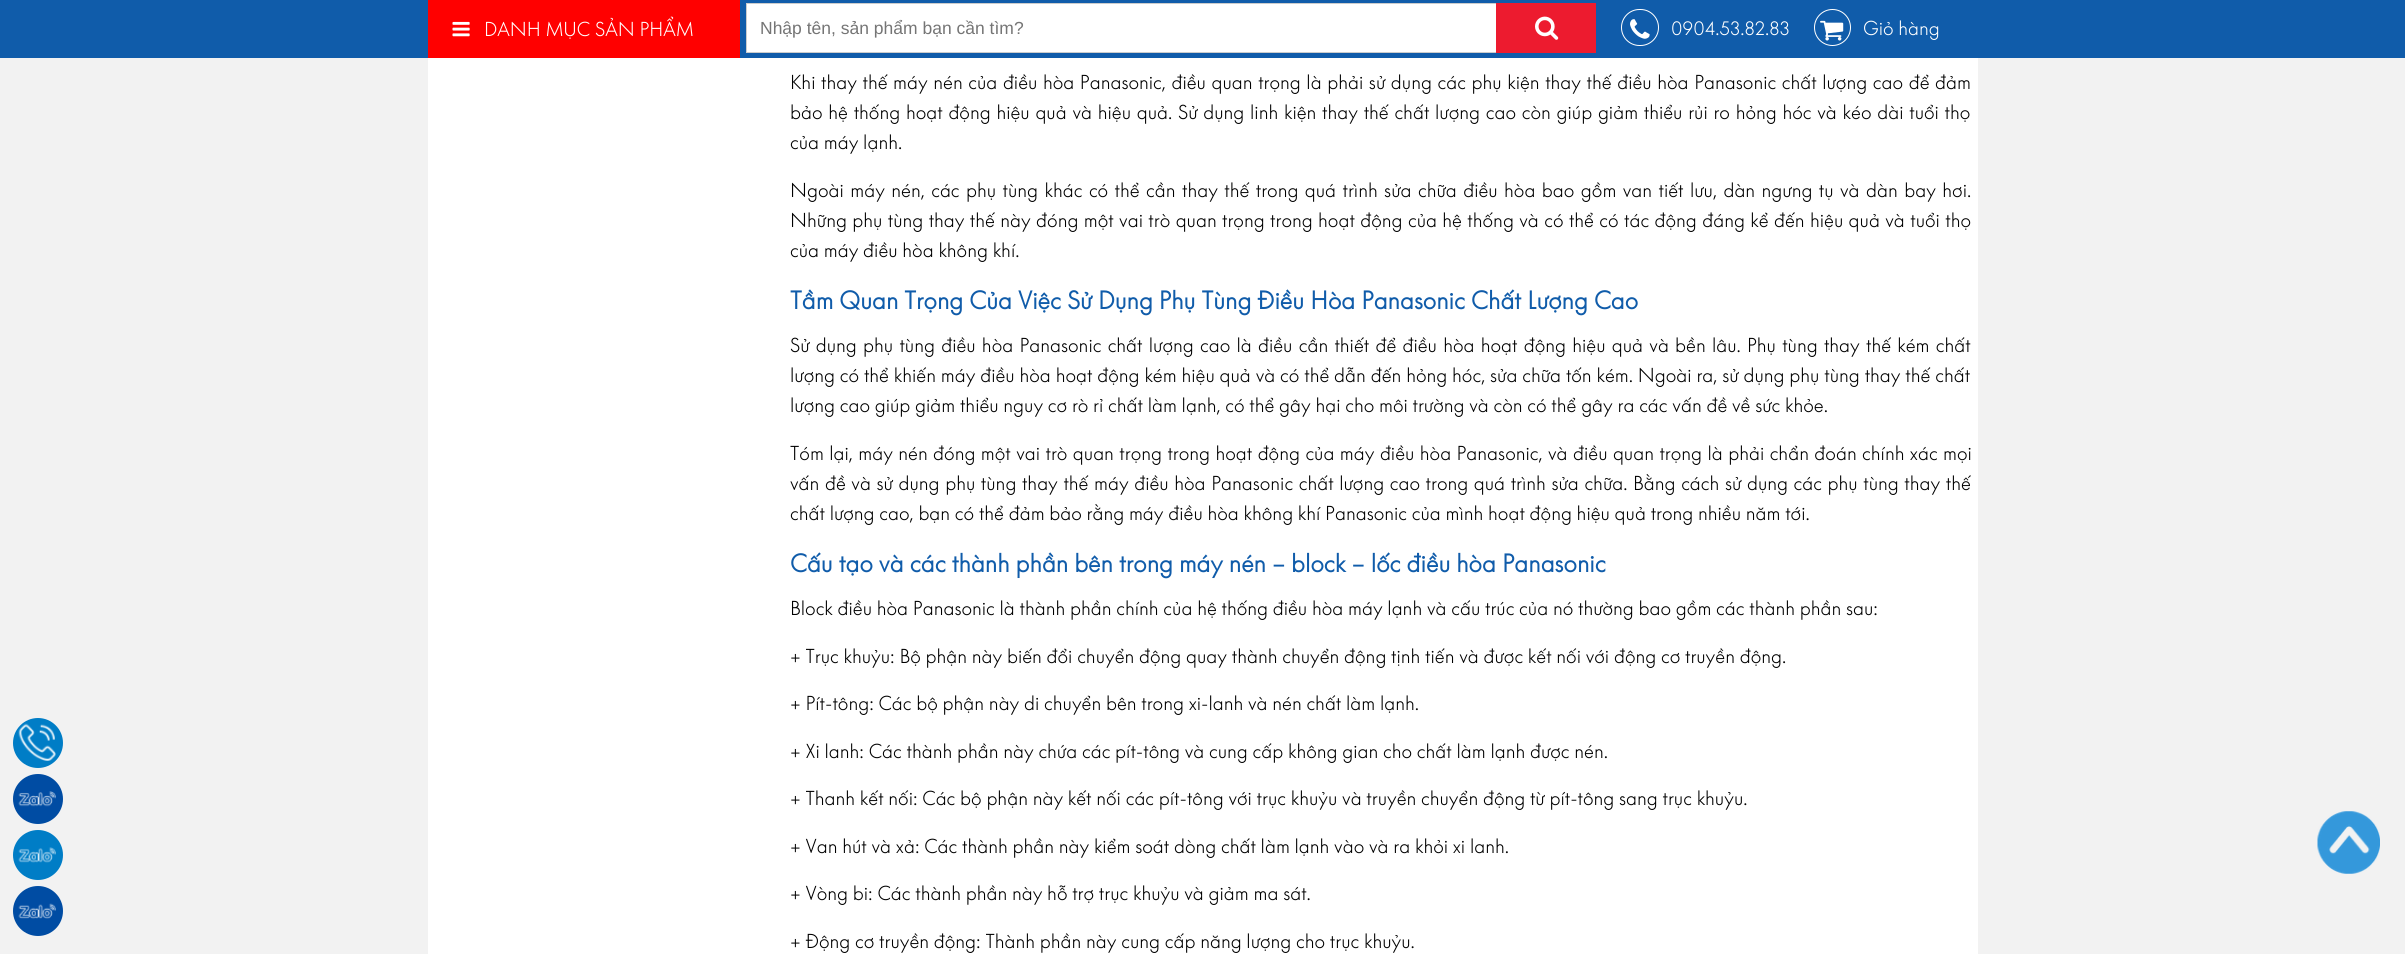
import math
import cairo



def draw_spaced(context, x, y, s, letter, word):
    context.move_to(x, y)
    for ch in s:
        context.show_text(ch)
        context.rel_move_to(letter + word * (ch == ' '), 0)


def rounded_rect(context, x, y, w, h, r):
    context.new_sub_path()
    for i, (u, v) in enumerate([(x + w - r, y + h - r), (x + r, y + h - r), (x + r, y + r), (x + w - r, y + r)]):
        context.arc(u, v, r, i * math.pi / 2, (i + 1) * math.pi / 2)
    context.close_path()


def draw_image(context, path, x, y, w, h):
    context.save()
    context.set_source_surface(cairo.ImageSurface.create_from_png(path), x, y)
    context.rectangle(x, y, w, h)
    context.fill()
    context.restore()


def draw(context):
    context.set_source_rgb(242 / 255, 242 / 255, 242 / 255)
    context.paint()
    context.set_source_rgb(16 / 255, 92 / 255, 170 / 255)
    context.rectangle(0, 0, 2405, 58)
    context.fill()
    context.set_source_rgb(1, 0, 0)
    context.rectangle(428, 0, 312, 58)
    context.fill()
    draw_image(context, "images/1.png", 452, 21, 18, 16)
    context.set_source_rgb(1, 1, 1)
    context.rectangle(747, 4, 749, 48)
    context.fill()
    context.rectangle(746.5, 3.5, 849, 49)
    context.set_source_rgb(204 / 255, 204 / 255, 204 / 255)
    context.set_line_width(1)
    context.stroke()
    context.set_source_rgb(237 / 255, 27 / 255, 47 / 255)
    context.rectangle(1496, 3, 100, 50)
    context.fill()
    draw_image(context, "images/2.png", 1535, 16, 24, 24)
    rounded_rect(context, 1621.5, 9.5, 37, 36, 18)
    context.set_source_rgb(1, 1, 1)
    context.stroke()
    draw_image(context, "images/3.png", 1630, 19, 20, 20)
    context.arc(1832.5, 27.5, 18, 0, 2 * math.pi)
    context.stroke()
    draw_image(context, "images/4.png", 1820, 20, 24, 21)
    context.set_source_rgb(0, 125 / 255, 198 / 255)
    context.arc(38, 743, 25, 0, 2 * math.pi)
    context.fill()
    draw_image(context, "images/5.png", 18, 723, 38, 38)
    context.set_source_rgb(0, 76 / 255, 163 / 255)
    context.arc(38, 799, 25, 0, 2 * math.pi)
    context.fill()
    draw_image(context, "images/6.png", 18, 791, 38, 16)
    context.set_source_rgb(0, 125 / 255, 198 / 255)
    context.arc(38, 855, 25, 0, 2 * math.pi)
    context.fill()
    draw_image(context, "images/7.png", 18, 847, 38, 16)
    context.set_source_rgb(0, 76 / 255, 163 / 255)
    context.arc(38, 911, 25, 0, 2 * math.pi)
    context.fill()
    draw_image(context, "images/8.png", 18, 903, 38, 16)
    context.set_source_rgb(1, 1, 1)
    context.rectangle(428, 58, 1550, 896)
    context.fill()
    draw_image(context, "images/9.png", 2317, 811, 63, 63)
    context.select_font_face("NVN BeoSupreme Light")
    context.set_font_size(18.75)
    context.move_to(484, 36)
    context.show_text("DANH MỤC SẢN PHẨM")
    context.select_font_face("Liberation Sans")
    context.set_font_size(17.5)
    context.set_source_rgb(117 / 255, 117 / 255, 117 / 255)
    context.move_to(760, 34)
    context.show_text("Nhập tên, sản phẩm bạn cần tìm?")
    context.select_font_face("NVN BeoSupreme Light")
    context.set_font_size(18.75)
    context.set_source_rgb(1, 1, 1)
    context.move_to(1671, 35)
    context.show_text("0904.53.82.83")
    context.move_to(1863, 35)
    context.show_text("Giỏ hàng")
    context.set_source_rgb(0, 0, 0)
    draw_spaced(context, 790, 89, "Khi thay thế máy nén của điều hòa Panasonic, điều quan trọng là phải sử dụng các phụ kiện thay thế điều hòa Panasonic chất lượng cao để đảm", 0, 0.85)
    draw_spaced(context, 790, 119, "bảo hệ thống hoạt động hiệu quả và hiệu quả. Sử dụng linh kiện thay thế chất lượng cao còn giúp giảm thiểu rủi ro hỏng hóc và kéo dài tuổi thọ", 0, 1)
    context.move_to(790, 149)
    context.show_text("của máy lạnh.")
    draw_spaced(context, 790, 197, "Ngoài máy nén, các phụ tùng khác có thể cần thay thế trong quá trình sửa chữa điều hòa bao gồm van tiết lưu, dàn ngưng tụ và dàn bay hơi.", 0, 1.7)
    draw_spaced(context, 790, 227, "Những phụ tùng thay thế này đóng một vai trò quan trọng trong hoạt động của hệ thống và có thể có tác động đáng kể đến hiệu quả và tuổi thọ", 0, 0.65)
    context.move_to(790, 257)
    context.show_text("của máy điều hòa không khí.")
    context.select_font_face("NVN BeoSupreme", cairo.FontSlant.NORMAL, cairo.FontWeight.BOLD)
    context.set_font_size(23.75)
    context.set_source_rgb(16 / 255, 92 / 255, 170 / 255)
    context.move_to(790, 309)
    context.show_text("Tầm Quan Trọng Của Việc Sử Dụng Phụ Tùng Điều Hòa Panasonic Chất Lượng Cao")
    context.select_font_face("NVN BeoSupreme Light")
    context.set_font_size(18.75)
    context.set_source_rgb(0, 0, 0)
    draw_spaced(context, 790, 352, "Sử dụng phụ tùng điều hòa Panasonic chất lượng cao là điều cần thiết để điều hòa hoạt động hiệu quả và bền lâu. Phụ tùng thay thế kém chất", 0, 1.5)
    draw_spaced(context, 790, 382, "lượng có thể khiến máy điều hòa hoạt động kém hiệu quả và có thể dẫn đến hỏng hóc, sửa chữa tốn kém. Ngoài ra, sử dụng phụ tùng thay thế chất", 0, 0.1)
    context.move_to(790, 412)
    context.show_text("lượng cao giúp giảm thiểu nguy cơ rò rỉ chất làm lạnh, có thể gây hại cho môi trường và còn có thể gây ra các vấn đề về sức khỏe.")
    draw_spaced(context, 790, 460, "Tóm lại, máy nén đóng một vai trò quan trọng trong hoạt động của máy điều hòa Panasonic, và điều quan trọng là phải chẩn đoán chính xác mọi", 0, 0.7)
    draw_spaced(context, 790, 490, "vấn đề và sử dụng phụ tùng thay thế máy điều hòa Panasonic chất lượng cao trong quá trình sửa chữa. Bằng cách sử dụng các phụ tùng thay thế", 0, 0.85)
    context.move_to(790, 520)
    context.show_text("chất lượng cao, bạn có thể đảm bảo rằng máy điều hòa không khí Panasonic của mình hoạt động hiệu quả trong nhiều năm tới.")
    context.select_font_face("NVN BeoSupreme", cairo.FontSlant.NORMAL, cairo.FontWeight.BOLD)
    context.set_font_size(23.75)
    context.set_source_rgb(16 / 255, 92 / 255, 170 / 255)
    context.move_to(790, 572)
    context.show_text("Cấu tạo và các thành phần bên trong máy nén – block – lốc điều hòa Panasonic")
    context.select_font_face("NVN BeoSupreme Light")
    context.set_font_size(18.75)
    context.set_source_rgb(0, 0, 0)
    context.move_to(790, 615)
    context.show_text("Block điều hòa Panasonic là thành phần chính của hệ thống điều hòa máy lạnh và cấu trúc của nó thường bao gồm các thành phần sau:")
    context.move_to(790, 663)
    context.show_text("+ Trục khuỷu: Bộ phận này biến đổi chuyển động quay thành chuyển động tịnh tiến và được kết nối với động cơ truyền động.")
    context.move_to(790, 710)
    context.show_text("+ Pít-tông: Các bộ phận này di chuyển bên trong xi-lanh và nén chất làm lạnh.")
    context.move_to(790, 758)
    context.show_text("+ Xi lanh: Các thành phần này chứa các pít-tông và cung cấp không gian cho chất làm lạnh được nén.")
    context.move_to(790, 805)
    context.show_text("+ Thanh kết nối: Các bộ phận này kết nối các pít-tông với trục khuỷu và truyền chuyển động từ pít-tông sang trục khuỷu.")
    context.move_to(790, 853)
    context.show_text("+ Van hút và xả: Các thành phần này kiểm soát dòng chất làm lạnh vào và ra khỏi xi lanh.")
    context.move_to(790, 900)
    context.show_text("+ Vòng bi: Các thành phần này hỗ trợ trục khuỷu và giảm ma sát.")
    context.move_to(790, 948)
    context.show_text("+ Động cơ truyền động: Thành phần này cung cấp năng lượng cho trục khuỷu.")


surface = cairo.ImageSurface(cairo.Format.RGB24, 2405, 954)
context = cairo.Context(surface)
options = cairo.FontOptions()
options.set_hint_metrics(cairo.HintMetrics.OFF)
options.set_hint_style(cairo.HintStyle.NONE)
context.set_font_options(options)
context.set_miter_limit(4)
draw(context)
surface.write_to_png("out.png")
